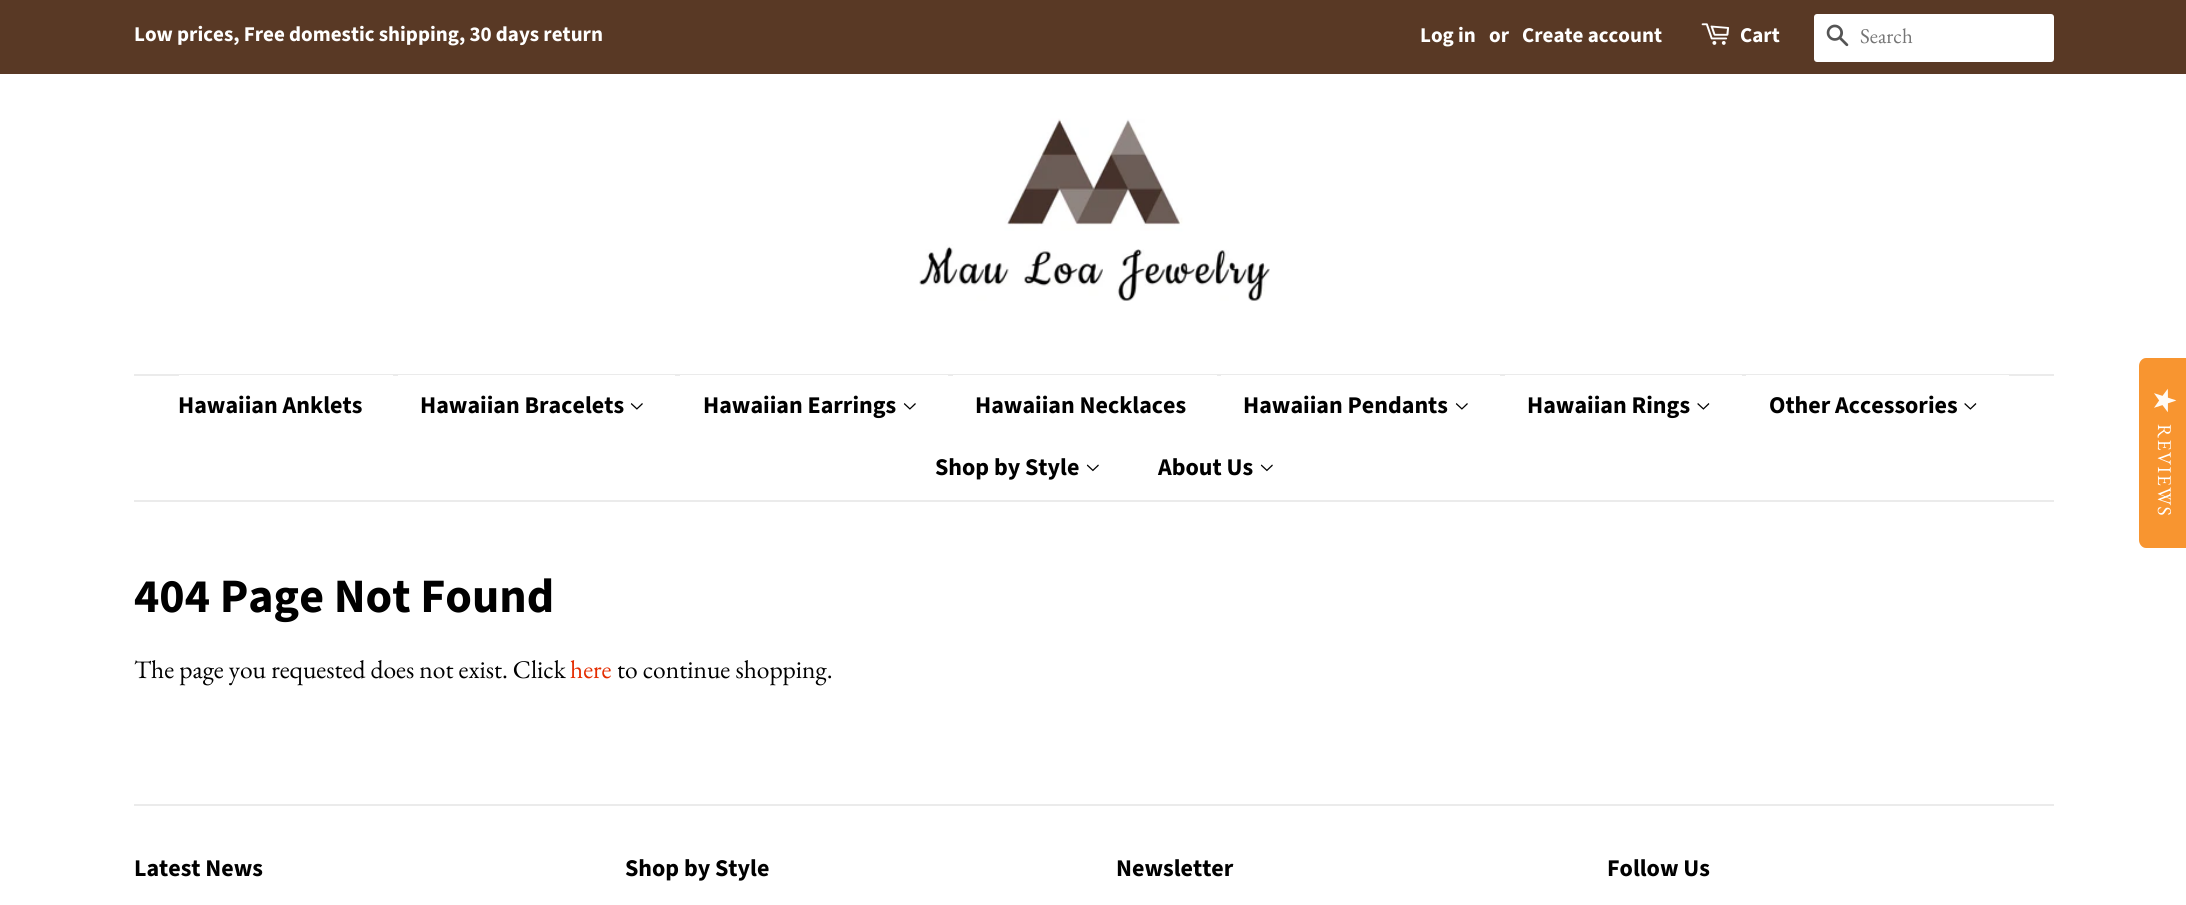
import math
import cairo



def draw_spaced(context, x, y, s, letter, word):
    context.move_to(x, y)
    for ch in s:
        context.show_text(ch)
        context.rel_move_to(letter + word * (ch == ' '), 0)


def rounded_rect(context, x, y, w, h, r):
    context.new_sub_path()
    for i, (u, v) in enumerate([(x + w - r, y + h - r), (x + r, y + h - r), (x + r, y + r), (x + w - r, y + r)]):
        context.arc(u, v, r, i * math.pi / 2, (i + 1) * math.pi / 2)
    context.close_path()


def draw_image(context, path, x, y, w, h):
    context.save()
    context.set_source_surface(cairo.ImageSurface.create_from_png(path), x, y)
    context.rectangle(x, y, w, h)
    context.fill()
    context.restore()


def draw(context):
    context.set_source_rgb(1, 1, 1)
    context.paint()
    context.set_source_rgb(89 / 255, 57 / 255, 37 / 255)
    context.rectangle(0, 0, 2186, 74)
    context.fill()
    draw_image(context, "images/1.png", 1701, 23, 29, 22)
    context.set_source_rgb(1, 1, 1)
    rounded_rect(context, 1814, 14, 240, 48, 3)
    context.fill()
    draw_image(context, "images/2.png", 1826, 24, 23, 23)
    draw_image(context, "images/3.png", 919, 118, 351, 183)
    context.set_source_rgb(235 / 255, 235 / 255, 235 / 255)
    context.rectangle(134, 374, 1920, 2)
    context.fill()
    context.rectangle(134, 500, 1920, 2)
    context.fill()
    context.set_source_rgb(1, 1, 1)
    context.rectangle(179, 375, 214, 1)
    context.fill()
    context.rectangle(398, 375, 277, 1)
    context.fill()
    draw_image(context, "images/4.png", 630, 403, 13, 7)
    context.rectangle(680, 375, 268, 1)
    context.fill()
    draw_image(context, "images/4.png", 903, 403, 13, 7)
    context.rectangle(953, 375, 264, 1)
    context.fill()
    context.rectangle(1221, 375, 279, 1)
    context.fill()
    draw_image(context, "images/4.png", 1455, 403, 13, 7)
    context.rectangle(1505, 375, 237, 1)
    context.fill()
    draw_image(context, "images/5.png", 1697, 403, 13, 7)
    context.rectangle(1746, 375, 263, 1)
    context.fill()
    draw_image(context, "images/5.png", 1964, 403, 13, 7)
    draw_image(context, "images/6.png", 1086, 464, 13, 8)
    draw_image(context, "images/6.png", 1260, 464, 13, 8)
    context.set_source_rgb(248 / 255, 149 / 255, 48 / 255)
    context.new_path()
    context.move_to(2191, 358)
    context.line_to(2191, 548)
    context.line_to(2146, 548)
    context.curve_to(2142, 548, 2139, 544, 2139, 540)
    context.line_to(2139, 366)
    context.curve_to(2139, 362, 2142, 358, 2146, 358)
    context.close_path()
    context.fill()
    draw_image(context, "images/7.png", 2154, 388, 23, 24)
    context.set_source_rgb(235 / 255, 235 / 255, 235 / 255)
    context.rectangle(134, 804, 1920, 2)
    context.fill()
    context.select_font_face("Source Sans Pro", cairo.FontSlant.NORMAL, cairo.FontWeight.BOLD)
    context.set_font_size(21)
    context.set_source_rgb(1, 1, 1)
    context.move_to(134, 41)
    context.show_text("Low prices, Free domestic shipping, 30 days return")
    context.move_to(1420, 42)
    context.show_text("Log in")
    context.move_to(1489, 42)
    context.show_text("or")
    context.move_to(1522, 42)
    context.show_text("Create account")
    context.move_to(1740, 42)
    context.show_text("Cart")
    context.select_font_face("EB Garamond")
    context.set_source_rgb(117 / 255, 117 / 255, 117 / 255)
    context.move_to(1860, 43)
    context.show_text("Search")
    context.select_font_face("Source Sans Pro", cairo.FontSlant.NORMAL, cairo.FontWeight.BOLD)
    context.set_font_size(24)
    context.set_source_rgb(0, 0, 0)
    context.move_to(178, 413)
    context.show_text("Hawaiian Anklets")
    context.move_to(420, 413)
    context.show_text("Hawaiian Bracelets")
    context.move_to(703, 413)
    context.show_text("Hawaiian Earrings")
    context.move_to(975, 413)
    context.show_text("Hawaiian Necklaces")
    context.move_to(1243, 413)
    context.show_text("Hawaiian Pendants")
    context.move_to(1527, 413)
    context.show_text("Hawaiian Rings")
    context.move_to(1769, 413)
    context.show_text("Other Accessories")
    context.move_to(935, 475)
    context.show_text("Shop by Style")
    context.move_to(1158, 475)
    context.show_text("About Us")
    context.select_font_face("EB Garamond")
    context.set_font_size(19.5)
    context.set_source_rgb(1, 1, 1)
    context.save()
    context.translate(2158, 424)
    context.rotate(90 * math.pi / 180)
    draw_spaced(context, 0, 0, "REVIEWS", 1.5, 0)
    context.restore()
    context.select_font_face("Source Sans Pro", cairo.FontSlant.NORMAL, cairo.FontWeight.BOLD)
    context.set_font_size(48)
    context.set_source_rgb(0, 0, 0)
    context.move_to(134, 612)
    context.show_text("404 Page Not Found")
    context.select_font_face("EB Garamond")
    context.set_font_size(25.5)
    context.move_to(134, 678)
    context.show_text("The page you requested does not exist. Click")
    context.set_source_rgb(228 / 255, 44 / 255, 0)
    context.move_to(570, 678)
    context.show_text("here")
    context.set_source_rgb(0, 0, 0)
    context.move_to(617, 678)
    context.show_text("to continue shopping.")
    context.select_font_face("Source Sans Pro", cairo.FontSlant.NORMAL, cairo.FontWeight.BOLD)
    context.set_font_size(24)
    context.move_to(134, 876)
    context.show_text("Latest News")
    context.move_to(625, 876)
    context.show_text("Shop by Style")
    context.move_to(1116, 876)
    context.show_text("Newsletter")
    context.move_to(1607, 876)
    context.show_text("Follow Us")


surface = cairo.ImageSurface(cairo.Format.RGB24, 2186, 905)
context = cairo.Context(surface)
options = cairo.FontOptions()
options.set_hint_metrics(cairo.HintMetrics.OFF)
options.set_hint_style(cairo.HintStyle.NONE)
context.set_font_options(options)
context.set_miter_limit(4)
draw(context)
surface.write_to_png("out.png")
